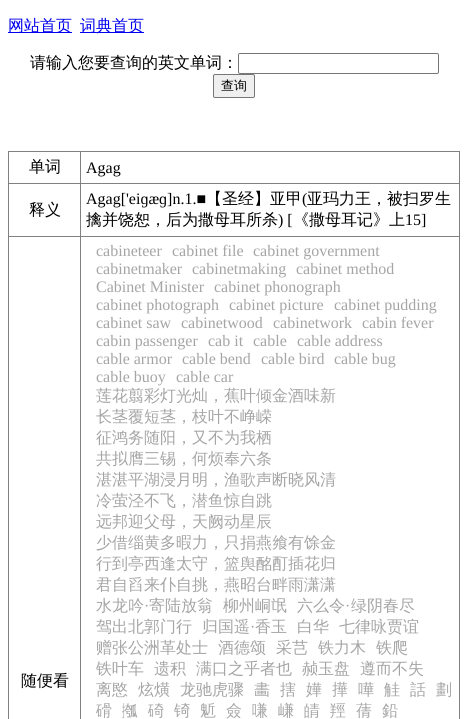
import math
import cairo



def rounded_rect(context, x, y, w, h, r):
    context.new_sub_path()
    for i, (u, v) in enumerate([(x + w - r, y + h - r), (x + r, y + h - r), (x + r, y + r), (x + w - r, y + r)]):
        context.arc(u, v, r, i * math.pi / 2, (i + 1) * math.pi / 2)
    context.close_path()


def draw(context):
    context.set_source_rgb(1, 1, 1)
    context.paint()
    context.set_source_rgb(0, 0, 238 / 255)
    context.rectangle(8, 32, 64, 1)
    context.fill()
    context.rectangle(80, 32, 64, 1)
    context.fill()
    rounded_rect(context, 238.5, 53.5, 200, 20, 1.5)
    context.set_source_rgb(118 / 255, 118 / 255, 118 / 255)
    context.set_line_width(1)
    context.stroke()
    context.set_source_rgb(239 / 255, 239 / 255, 239 / 255)
    rounded_rect(context, 213.5, 74.5, 41, 23, 1.5)
    context.fill_preserve()
    context.set_source_rgb(118 / 255, 118 / 255, 118 / 255)
    context.stroke()
    context.set_source_rgb(128 / 255, 128 / 255, 128 / 255)
    context.rectangle(8, 151, 452, 1)
    context.fill()
    context.rectangle(459, 151, 1, 568)
    context.fill()
    context.rectangle(8, 151, 1, 568)
    context.fill()
    context.rectangle(80, 183, 380, 1)
    context.fill()
    context.rectangle(80, 236, 380, 1)
    context.fill()
    context.rectangle(80, 236, 1, 483)
    context.fill()
    context.rectangle(8, 236, 73, 1)
    context.fill()
    context.rectangle(80, 183, 1, 54)
    context.fill()
    context.rectangle(8, 183, 73, 1)
    context.fill()
    context.rectangle(80, 151, 1, 33)
    context.fill()
    context.select_font_face("WenQuanYi Zen Hei Medium")
    context.set_font_size(16)
    context.set_source_rgb(0, 0, 238 / 255)
    context.move_to(8, 31)
    context.show_text("网站首页")
    context.move_to(80, 31)
    context.show_text("词典首页")
    context.set_source_rgb(0, 0, 0)
    context.move_to(30, 68)
    context.show_text("请输入您要查询的英文单词：")
    context.set_font_size(13)
    context.move_to(221, 90)
    context.show_text("查询")
    context.set_font_size(16)
    context.move_to(29, 172)
    context.show_text("单词")
    context.select_font_face("Liberation Serif")
    context.move_to(86, 173)
    context.show_text("Agag")
    context.select_font_face("WenQuanYi Zen Hei Medium")
    context.move_to(29, 215)
    context.show_text("释义")
    context.select_font_face("Liberation Serif")
    context.move_to(86, 204)
    context.show_text("Agag['eiɡæɡ]n.1.■")
    context.select_font_face("WenQuanYi Zen Hei Medium")
    context.move_to(206, 204)
    context.show_text("【圣经】亚甲")
    context.select_font_face("Liberation Serif")
    context.move_to(302, 204)
    context.show_text("(")
    context.select_font_face("WenQuanYi Zen Hei Medium")
    context.move_to(307, 204)
    context.show_text("亚玛力王，被扫罗生")
    context.move_to(86, 225)
    context.show_text("擒并饶恕，后为撒母耳所杀")
    context.select_font_face("Liberation Serif")
    context.move_to(278, 225)
    context.show_text(") [")
    context.select_font_face("WenQuanYi Zen Hei Medium")
    context.move_to(293, 225)
    context.show_text("《撒母耳记》上")
    context.select_font_face("Liberation Serif")
    context.move_to(405, 225)
    context.show_text("15]")
    context.select_font_face("WenQuanYi Zen Hei Medium")
    context.move_to(21, 686)
    context.show_text("随便看")
    context.select_font_face("Liberation Serif")
    context.set_source_rgb(165 / 255, 165 / 255, 165 / 255)
    context.move_to(96, 256)
    context.show_text("cabineteer")
    context.move_to(172, 256)
    context.show_text("cabinet file")
    context.move_to(253, 256)
    context.show_text("cabinet government")
    context.move_to(96, 274)
    context.show_text("cabinetmaker")
    context.move_to(192, 274)
    context.show_text("cabinetmaking")
    context.move_to(296, 274)
    context.show_text("cabinet method")
    context.move_to(96, 292)
    context.show_text("Cabinet Minister")
    context.move_to(214, 292)
    context.show_text("cabinet phonograph")
    context.move_to(96, 310)
    context.show_text("cabinet photograph")
    context.move_to(229, 310)
    context.show_text("cabinet picture")
    context.move_to(334, 310)
    context.show_text("cabinet pudding")
    context.move_to(96, 328)
    context.show_text("cabinet saw")
    context.move_to(181, 328)
    context.show_text("cabinetwood")
    context.move_to(273, 328)
    context.show_text("cabinetwork")
    context.move_to(362, 328)
    context.show_text("cabin fever")
    context.move_to(96, 346)
    context.show_text("cabin passenger")
    context.move_to(208, 346)
    context.show_text("cab it")
    context.move_to(253, 346)
    context.show_text("cable")
    context.move_to(297, 346)
    context.show_text("cable address")
    context.move_to(96, 364)
    context.show_text("cable armor")
    context.move_to(182, 364)
    context.show_text("cable bend")
    context.move_to(261, 364)
    context.show_text("cable bird")
    context.move_to(334, 364)
    context.show_text("cable bug")
    context.move_to(96, 382)
    context.show_text("cable buoy")
    context.move_to(176, 382)
    context.show_text("cable car")
    context.select_font_face("WenQuanYi Zen Hei Medium")
    context.move_to(96, 401)
    context.show_text("莲花翦彩灯光灿，蕉叶倾金酒味新")
    context.move_to(96, 422)
    context.show_text("长茎覆短茎，枝叶不峥嵘")
    context.move_to(96, 443)
    context.show_text("征鸿务随阳，又不为我栖")
    context.move_to(96, 464)
    context.show_text("共拟膺三锡，何烦奉六条")
    context.move_to(96, 485)
    context.show_text("湛湛平湖浸月明，渔歌声断晓风清")
    context.move_to(96, 506)
    context.show_text("冷萤泾不飞，潜鱼惊自跳")
    context.move_to(96, 527)
    context.show_text("远邦迎父母，天阙动星辰")
    context.move_to(96, 548)
    context.show_text("少借缁黄多暇力，只捐燕飨有馀金")
    context.move_to(96, 569)
    context.show_text("行到亭西逢太守，篮舆酩酊插花归")
    context.move_to(96, 590)
    context.show_text("君自舀来仆自挑，燕昭台畔雨潇潇")
    context.move_to(96, 611)
    context.show_text("水龙吟")
    context.select_font_face("Liberation Serif")
    context.move_to(144, 611)
    context.show_text("·")
    context.select_font_face("WenQuanYi Zen Hei Medium")
    context.move_to(149, 611)
    context.show_text("寄陆放翁")
    context.move_to(223, 611)
    context.show_text("柳州峒氓")
    context.move_to(297, 611)
    context.show_text("六么令")
    context.select_font_face("Liberation Serif")
    context.move_to(345, 611)
    context.show_text("·")
    context.select_font_face("WenQuanYi Zen Hei Medium")
    context.move_to(351, 611)
    context.show_text("绿阴春尽")
    context.move_to(96, 632)
    context.show_text("驾出北郭门行")
    context.move_to(202, 632)
    context.show_text("归国遥")
    context.select_font_face("Liberation Serif")
    context.move_to(250, 632)
    context.show_text("·")
    context.select_font_face("WenQuanYi Zen Hei Medium")
    context.move_to(255, 632)
    context.show_text("香玉")
    context.move_to(297, 632)
    context.show_text("白华")
    context.move_to(339, 632)
    context.show_text("七律咏贾谊")
    context.move_to(96, 653)
    context.show_text("赠张公洲革处士")
    context.move_to(218, 653)
    context.show_text("酒德颂")
    context.move_to(276, 653)
    context.show_text("采芑")
    context.move_to(318, 653)
    context.show_text("铁力木")
    context.move_to(376, 653)
    context.show_text("铁爬")
    context.move_to(96, 674)
    context.show_text("铁叶车")
    context.move_to(154, 674)
    context.show_text("遗积")
    context.move_to(196, 674)
    context.show_text("满口之乎者也")
    context.move_to(302, 674)
    context.show_text("赪玉盘")
    context.move_to(360, 674)
    context.show_text("遵而不失")
    context.move_to(96, 695)
    context.show_text("离愍")
    context.move_to(138, 695)
    context.show_text("炫熿")
    context.move_to(180, 695)
    context.show_text("龙驰虎骤")
    context.move_to(254, 695)
    context.show_text("畵")
    context.move_to(280, 695)
    context.show_text("搳")
    context.move_to(306, 695)
    context.show_text("嬅")
    context.move_to(332, 695)
    context.show_text("撶")
    context.move_to(358, 695)
    context.show_text("嘩")
    context.move_to(384, 695)
    context.show_text("觟")
    context.move_to(410, 695)
    context.show_text("話")
    context.move_to(436, 695)
    context.show_text("劃")
    context.move_to(96, 716)
    context.show_text("磆")
    context.move_to(122, 716)
    context.show_text("摦")
    context.move_to(148, 716)
    context.show_text("碕")
    context.move_to(174, 716)
    context.show_text("锜")
    context.move_to(200, 716)
    context.show_text("鬿")
    context.move_to(226, 716)
    context.show_text("僉")
    context.move_to(252, 716)
    context.show_text("嗛")
    context.move_to(278, 716)
    context.show_text("嵰")
    context.move_to(304, 716)
    context.show_text("皘")
    context.move_to(330, 716)
    context.show_text("羥")
    context.move_to(356, 716)
    context.show_text("蒨")
    context.move_to(382, 716)
    context.show_text("鉛")


surface = cairo.ImageSurface(cairo.Format.RGB24, 468, 719)
context = cairo.Context(surface)
options = cairo.FontOptions()
options.set_hint_metrics(cairo.HintMetrics.OFF)
options.set_hint_style(cairo.HintStyle.NONE)
context.set_font_options(options)
context.set_miter_limit(4)
draw(context)
surface.write_to_png("out.png")
